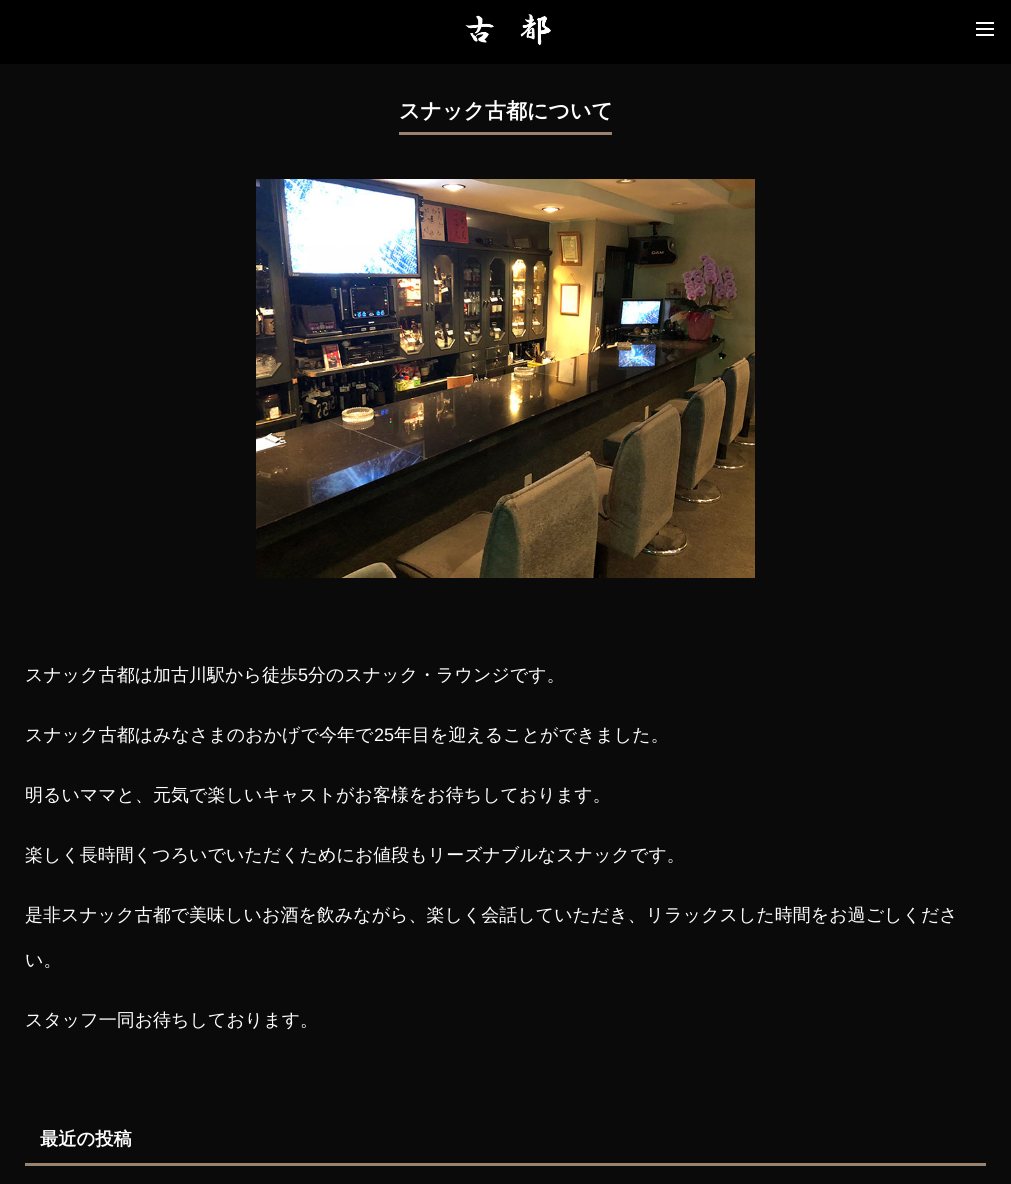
import math
import cairo



def draw_image(context, path, x, y, w, h):
    context.save()
    context.set_source_surface(cairo.ImageSurface.create_from_png(path), x, y)
    context.rectangle(x, y, w, h)
    context.fill()
    context.restore()


def draw(context):
    context.set_source_rgb(10 / 255, 10 / 255, 10 / 255)
    context.paint()
    context.set_source_rgb(0, 0, 0)
    context.rectangle(0, 0, 1011, 64)
    context.fill()
    draw_image(context, "images/1.png", 465, 14, 86, 32)
    context.set_source_rgb(1, 1, 1)
    context.rectangle(976, 28, 18, 2)
    context.fill()
    context.rectangle(976, 22, 18, 2)
    context.fill()
    context.rectangle(976, 34, 18, 2)
    context.fill()
    context.set_source_rgb(154 / 255, 131 / 255, 110 / 255)
    context.rectangle(399, 132, 213, 3)
    context.fill()
    draw_image(context, "images/2.png", 256, 179, 499, 399)
    context.rectangle(25, 1163, 961, 3)
    context.fill()
    context.select_font_face("WenQuanYi Zen Hei", cairo.FontSlant.NORMAL, cairo.FontWeight.BOLD)
    context.set_font_size(21)
    context.set_source_rgb(1, 1, 1)
    context.move_to(399, 118)
    context.show_text("スナック古都について")
    context.select_font_face("WenQuanYi Zen Hei Medium")
    context.set_font_size(18)
    context.move_to(25, 681)
    context.show_text("スナック古都は加古川駅から徒歩")
    context.select_font_face("Liberation Sans")
    context.move_to(298, 681)
    context.show_text("5")
    context.select_font_face("WenQuanYi Zen Hei Medium")
    context.move_to(308, 681)
    context.show_text("分のスナック・ラウンジです。")
    context.move_to(25, 741)
    context.show_text("スナック古都はみなさまのおかげで今年で")
    context.select_font_face("Liberation Sans")
    context.move_to(374, 741)
    context.show_text("25")
    context.select_font_face("WenQuanYi Zen Hei Medium")
    context.move_to(394, 741)
    context.show_text("年目を迎えることができました。")
    context.move_to(25, 801)
    context.show_text("明るいママと、元気で楽しいキャストがお客様をお待ちしております。")
    context.move_to(25, 861)
    context.show_text("楽しく長時間くつろいでいただくためにお値段もリーズナブルなスナックです。")
    context.move_to(25, 921)
    context.show_text("是非スナック古都で美味しいお酒を飲みながら、楽しく会話していただき、リラックスした時間をお過ごしくださ")
    context.move_to(25, 966)
    context.show_text("い。")
    context.move_to(25, 1026)
    context.show_text("スタッフ一同お待ちしております。")
    context.select_font_face("WenQuanYi Zen Hei", cairo.FontSlant.NORMAL, cairo.FontWeight.BOLD)
    context.set_font_size(18.25)
    context.move_to(40, 1145)
    context.show_text("最近の投稿")


surface = cairo.ImageSurface(cairo.Format.RGB24, 1011, 1184)
context = cairo.Context(surface)
options = cairo.FontOptions()
options.set_hint_metrics(cairo.HintMetrics.OFF)
options.set_hint_style(cairo.HintStyle.NONE)
context.set_font_options(options)
context.set_miter_limit(4)
draw(context)
surface.write_to_png("out.png")
